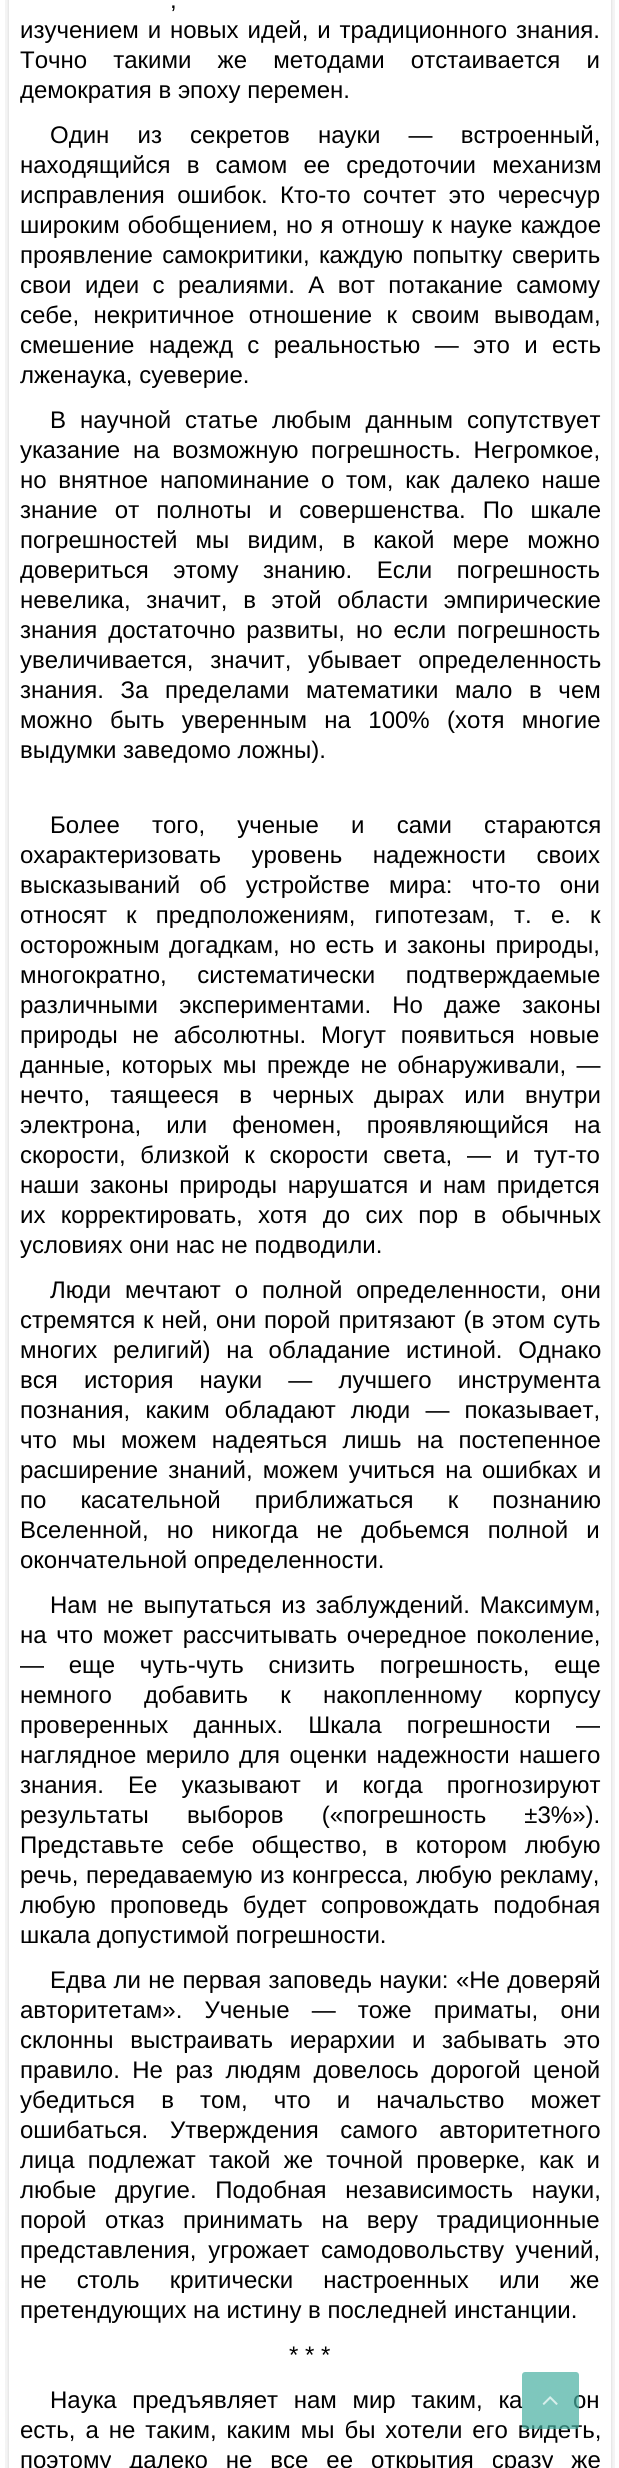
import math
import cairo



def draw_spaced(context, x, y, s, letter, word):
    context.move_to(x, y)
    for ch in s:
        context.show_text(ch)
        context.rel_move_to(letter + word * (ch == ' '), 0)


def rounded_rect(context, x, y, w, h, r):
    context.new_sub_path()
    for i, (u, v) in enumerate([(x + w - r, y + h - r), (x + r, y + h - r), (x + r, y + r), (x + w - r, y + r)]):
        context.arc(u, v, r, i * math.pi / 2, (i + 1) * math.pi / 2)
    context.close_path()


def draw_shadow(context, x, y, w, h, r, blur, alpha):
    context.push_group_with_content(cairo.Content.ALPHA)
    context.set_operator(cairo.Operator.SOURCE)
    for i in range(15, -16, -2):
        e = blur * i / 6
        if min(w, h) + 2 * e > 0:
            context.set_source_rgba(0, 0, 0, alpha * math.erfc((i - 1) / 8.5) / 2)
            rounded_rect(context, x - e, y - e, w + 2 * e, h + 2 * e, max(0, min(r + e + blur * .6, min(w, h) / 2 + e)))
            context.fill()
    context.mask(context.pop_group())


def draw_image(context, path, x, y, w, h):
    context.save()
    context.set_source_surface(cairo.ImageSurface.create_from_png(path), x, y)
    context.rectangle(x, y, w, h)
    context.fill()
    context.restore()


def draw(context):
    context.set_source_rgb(1, 1, 1)
    context.paint()
    context.set_source_rgb(244 / 255, 244 / 255, 244 / 255)
    context.rectangle(5, 0, 610, 2468)
    context.fill()
    context.set_source_rgb(51 / 255, 51 / 255, 51 / 255)
    draw_shadow(context, 9, -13, 602, 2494, 8, 1.5, 0.08)
    draw_shadow(context, 9, -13, 602, 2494, 8, 1.5, 0.08)
    context.set_source_rgb(1, 1, 1)
    context.rectangle(9, 0, 602, 2468)
    context.fill()
    context.select_font_face("Liberation Sans")
    context.set_font_size(24)
    context.set_source_rgb(0, 0, 0)
    draw_spaced(context, 170, 8, ",", 0, 32)
    draw_spaced(context, 20, 38, "изучением и новых идей, и традиционного знания.", 0, 2.25)
    draw_spaced(context, 20, 68, "Точно такими же методами отстаивается и", 0, 19.5)
    context.move_to(20, 98)
    context.show_text("демократия в эпоху перемен.")
    draw_spaced(context, 50, 143, "Один из секретов науки — встроенный,", 0, 21.5)
    draw_spaced(context, 20, 173, "находящийся в самом ее средоточии механизм", 0, 9.5)
    draw_spaced(context, 20, 203, "исправления ошибок. Кто-то сочтет это чересчур", 0, 5.75)
    draw_spaced(context, 20, 233, "широким обобщением, но я отношу к науке каждое", 0, 1.25)
    draw_spaced(context, 20, 263, "проявление самокритики, каждую попытку сверить", 0, 2.75)
    draw_spaced(context, 20, 293, "свои идеи с реалиями. А вот потакание самому", 0, 6.75)
    draw_spaced(context, 20, 323, "себе, некритичное отношение к своим выводам,", 0, 7.75)
    draw_spaced(context, 20, 353, "смешение надежд с реальностью — это и есть", 0, 7.75)
    context.move_to(20, 383)
    context.show_text("лженаука, суеверие.")
    draw_spaced(context, 50, 428, "В научной статье любым данным сопутствует", 0, 7.25)
    draw_spaced(context, 20, 458, "указание на возможную погрешность. Негромкое,", 0, 6)
    draw_spaced(context, 20, 488, "но внятное напоминание о том, как далеко наше", 0, 5)
    draw_spaced(context, 20, 518, "знание от полноты и совершенства. По шкале", 0, 10.5)
    draw_spaced(context, 20, 548, "погрешностей мы видим, в какой мере можно", 0, 11.5)
    draw_spaced(context, 20, 578, "довериться этому знанию. Если погрешность", 0, 18)
    draw_spaced(context, 20, 608, "невелика, значит, в этой области эмпирические", 0, 9)
    draw_spaced(context, 20, 638, "знания достаточно развиты, но если погрешность", 0, 4.25)
    draw_spaced(context, 20, 668, "увеличивается, значит, убывает определенность", 0, 10)
    draw_spaced(context, 20, 698, "знания. За пределами математики мало в чем", 0, 10)
    draw_spaced(context, 20, 728, "можно быть уверенным на 100% (хотя многие", 0, 10.75)
    context.move_to(20, 758)
    context.show_text("выдумки заведомо ложны).")
    draw_spaced(context, 50, 833, "Более того, ученые и сами стараются", 0, 25.5)
    draw_spaced(context, 20, 863, "охарактеризовать уровень надежности своих", 0, 24)
    draw_spaced(context, 20, 893, "высказываний об устройстве мира: что-то они", 0, 12.5)
    draw_spaced(context, 20, 923, "относят к предположениям, гипотезам, т. е. к", 0, 12.5)
    draw_spaced(context, 20, 953, "осторожным догадкам, но есть и законы природы,", 0, 3)
    draw_spaced(context, 20, 983, "многократно, систематически подтверждаемые", 0, 24)
    draw_spaced(context, 20, 1013, "различными экспериментами. Но даже законы", 0, 14.5)
    draw_spaced(context, 20, 1043, "природы не абсолютны. Могут появиться новые", 0, 8)
    draw_spaced(context, 20, 1073, "данные, которых мы прежде не обнаруживали, —", 0, 3.75)
    draw_spaced(context, 20, 1103, "нечто, таящееся в черных дырах или внутри", 0, 13.5)
    draw_spaced(context, 20, 1133, "электрона, или феномен, проявляющийся на", 0, 18.5)
    draw_spaced(context, 20, 1163, "скорости, близкой к скорости света, — и тут-то", 0, 8)
    draw_spaced(context, 20, 1193, "наши законы природы нарушатся и нам придется", 0, 4)
    draw_spaced(context, 20, 1223, "их корректировать, хотя до сих пор в обычных", 0, 8.75)
    context.move_to(20, 1253)
    context.show_text("условиях они нас не подводили.")
    draw_spaced(context, 50, 1298, "Люди мечтают о полной определенности, они", 0, 7.25)
    draw_spaced(context, 20, 1328, "стремятся к ней, они порой притязают (в этом суть", 0, 1.25)
    draw_spaced(context, 20, 1358, "многих религий) на обладание истиной. Однако", 0, 9)
    draw_spaced(context, 20, 1388, "вся история науки — лучшего инструмента", 0, 19.5)
    draw_spaced(context, 20, 1418, "познания, каким обладают люди — показывает,", 0, 8.5)
    draw_spaced(context, 20, 1448, "что мы можем надеяться лишь на постепенное", 0, 8.5)
    draw_spaced(context, 20, 1478, "расширение знаний, можем учиться на ошибках и", 0, 3.5)
    draw_spaced(context, 20, 1508, "по касательной приближаться к познанию", 0, 27.5)
    draw_spaced(context, 20, 1538, "Вселенной, но никогда не добьемся полной и", 0, 11.5)
    context.move_to(20, 1568)
    context.show_text("окончательной определенности.")
    draw_spaced(context, 50, 1613, "Нам не выпутаться из заблуждений. Максимум,", 0, 3.25)
    draw_spaced(context, 20, 1643, "на что может рассчитывать очередное поколение,", 0, 3)
    draw_spaced(context, 20, 1673, "— еще чуть-чуть снизить погрешность, еще", 0, 18)
    draw_spaced(context, 20, 1703, "немного добавить к накопленному корпусу", 0, 25.5)
    draw_spaced(context, 20, 1733, "проверенных данных. Шкала погрешности —", 0, 18.5)
    draw_spaced(context, 20, 1763, "наглядное мерило для оценки надежности нашего", 0, 2.75)
    draw_spaced(context, 20, 1793, "знания. Ее указывают и когда прогнозируют", 0, 17.5)
    draw_spaced(context, 20, 1823, "результаты выборов («погрешность ±3%»).", 0, 31.5)
    draw_spaced(context, 20, 1853, "Представьте себе общество, в котором любую", 0, 11)
    draw_spaced(context, 20, 1883, "речь, передаваемую из конгресса, любую рекламу,", 0, 1)
    draw_spaced(context, 20, 1913, "любую проповедь будет сопровождать подобная", 0, 7.5)
    context.move_to(20, 1943)
    context.show_text("шкала допустимой погрешности.")
    draw_spaced(context, 50, 1988, "Едва ли не первая заповедь науки: «Не доверяй", 0, 0.75)
    draw_spaced(context, 20, 2018, "авторитетам». Ученые — тоже приматы, они", 0, 15.5)
    draw_spaced(context, 20, 2048, "склонны выстраивать иерархии и забывать это", 0, 10)
    draw_spaced(context, 20, 2078, "правило. Не раз людям довелось дорогой ценой", 0, 5.75)
    draw_spaced(context, 20, 2108, "убедиться в том, что и начальство может", 0, 19.5)
    draw_spaced(context, 20, 2138, "ошибаться. Утверждения самого авторитетного", 0, 15)
    draw_spaced(context, 20, 2168, "лица подлежат такой же точной проверке, как и", 0, 6.5)
    draw_spaced(context, 20, 2198, "любые другие. Подобная независимость науки,", 0, 12)
    draw_spaced(context, 20, 2228, "порой отказ принимать на веру традиционные", 0, 12)
    draw_spaced(context, 20, 2258, "представления, угрожает самодовольству учений,", 0, 5)
    draw_spaced(context, 20, 2288, "не столь критически настроенных или же", 0, 23.5)
    context.move_to(20, 2318)
    context.show_text("претендующих на истину в последней инстанции.")
    context.move_to(289, 2363)
    context.show_text("* * *")
    draw_spaced(context, 50, 2408, "Наука предъявляет нам мир таким, ка", 0, 9)
    draw_spaced(context, 573, 2408, "он", 0, 9)
    draw_spaced(context, 20, 2438, "есть, а не таким, каким мы бы хотели его видеть,", 0, 3.25)
    draw_spaced(context, 20, 2468, "поэтому далеко не все ее открытия сразу же", 0, 11.25)
    context.set_source_rgba(72 / 255, 176 / 255, 162 / 255, 0.7)
    rounded_rect(context, 522, 2372, 57, 57, 3)
    context.fill()
    draw_image(context, "images/1.png", 542, 2396, 16, 9)


surface = cairo.ImageSurface(cairo.Format.RGB24, 619, 2468)
context = cairo.Context(surface)
options = cairo.FontOptions()
options.set_hint_metrics(cairo.HintMetrics.OFF)
options.set_hint_style(cairo.HintStyle.NONE)
context.set_font_options(options)
context.set_miter_limit(4)
draw(context)
surface.write_to_png("out.png")
